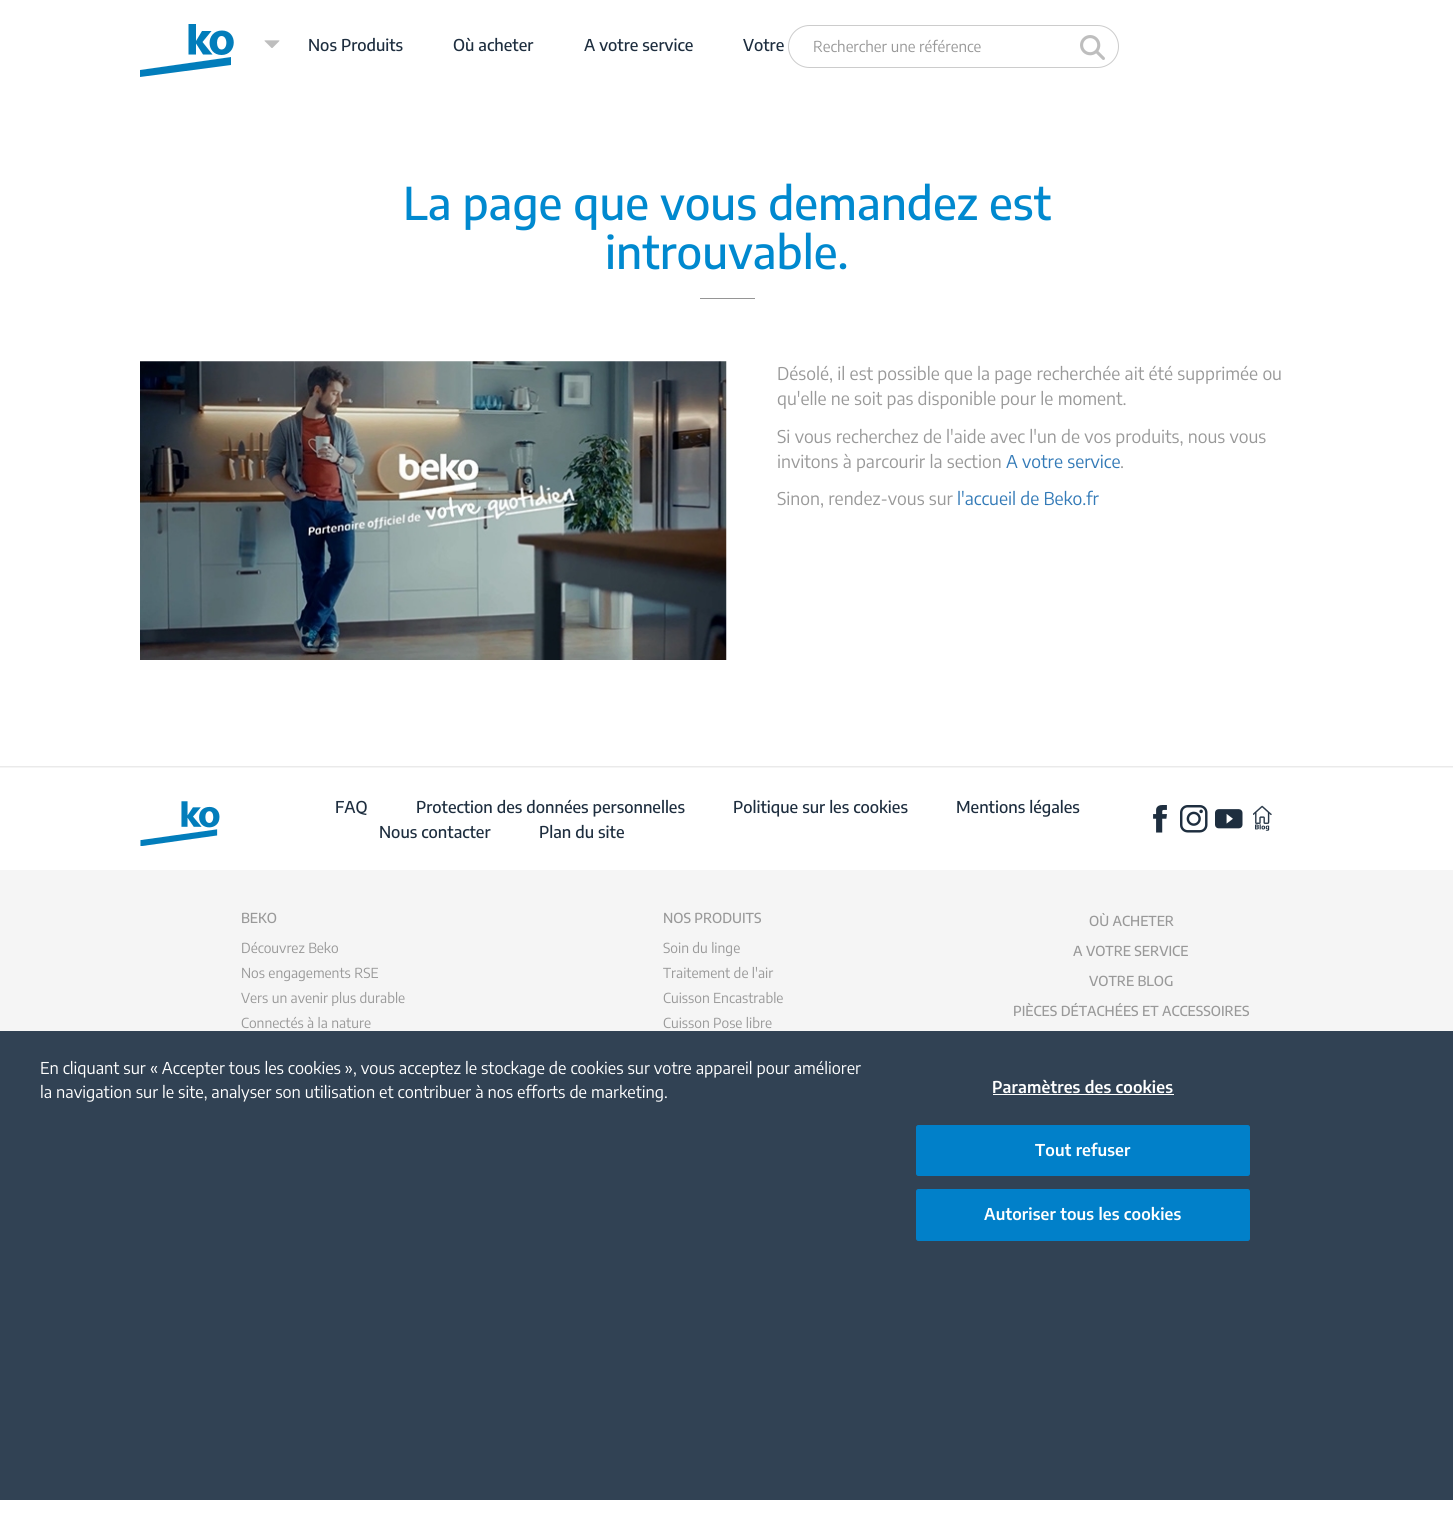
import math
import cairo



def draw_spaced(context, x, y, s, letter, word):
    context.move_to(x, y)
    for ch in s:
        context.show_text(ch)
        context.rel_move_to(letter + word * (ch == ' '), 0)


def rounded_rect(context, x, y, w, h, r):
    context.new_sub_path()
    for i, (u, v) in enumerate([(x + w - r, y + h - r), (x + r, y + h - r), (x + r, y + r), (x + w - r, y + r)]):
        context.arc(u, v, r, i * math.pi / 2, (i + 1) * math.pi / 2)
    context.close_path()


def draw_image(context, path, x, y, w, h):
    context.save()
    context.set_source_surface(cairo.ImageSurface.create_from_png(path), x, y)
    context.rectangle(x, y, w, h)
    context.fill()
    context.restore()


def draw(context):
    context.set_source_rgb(1, 1, 1)
    context.paint()
    context.set_source_rgb(2 / 255, 125 / 255, 187 / 255)
    context.new_path()
    context.move_to(188.5, 24)
    context.line_to(188.5, 54.5)
    context.line_to(196, 54.5)
    context.line_to(196, 43.5)
    context.line_to(203, 54.5)
    context.line_to(212.5, 54.5)
    context.line_to(202.5, 42)
    context.line_to(211.5, 31)
    context.line_to(202, 31)
    context.line_to(196, 41)
    context.line_to(196, 24)
    context.close_path()
    context.fill()
    context.new_path()
    context.move_to(222, 30.5)
    context.curve_to(205.5, 30.5, 205.5, 55, 221.5, 55)
    context.curve_to(237.5, 55, 238, 30.5, 222, 30.5)
    context.move_to(221.5, 49.5)
    context.curve_to(215.5, 49.5, 215.5, 36, 221.5, 36)
    context.curve_to(228, 36, 228, 49.5, 221.5, 49.5)
    context.fill()
    draw_image(context, "images/1.png", 264, 40, 16, 8)
    context.new_path()
    context.move_to(140, 70)
    context.line_to(140, 77)
    context.line_to(231, 65)
    context.line_to(231, 57)
    context.close_path()
    context.fill()
    rounded_rect(context, 788.5, 25.5, 330, 42, 21)
    context.set_source_rgb(204 / 255, 204 / 255, 204 / 255)
    context.set_line_width(1)
    context.stroke()
    draw_image(context, "images/2.png", 1080, 35, 25, 25)
    context.set_source_rgb(149 / 255, 149 / 255, 149 / 255)
    context.rectangle(700, 298, 55, 1)
    context.fill()
    draw_image(context, "images/3.png", 140, 361, 587, 299)
    context.set_source_rgb(245 / 255, 245 / 255, 245 / 255)
    context.rectangle(0, 767, 1453, 264)
    context.fill()
    context.set_source_rgb(234 / 255, 234 / 255, 234 / 255)
    context.rectangle(0, 766, 1453, 1)
    context.fill()
    context.set_source_rgb(1, 1, 1)
    context.rectangle(0, 768, 1453, 102)
    context.fill()
    draw_image(context, "images/4.png", 140, 801, 80, 45)
    draw_image(context, "images/5.png", 1153, 805, 14, 28)
    draw_image(context, "images/6.png", 1180, 805, 28, 28)
    draw_image(context, "images/7.png", 1215, 809, 28, 20)
    draw_image(context, "images/8.png", 1253, 805, 19, 26)
    context.set_source_rgb(49 / 255, 66 / 255, 84 / 255)
    context.rectangle(0, 1031, 1453, 469)
    context.fill()
    context.set_source_rgb(1, 1, 1)
    context.rectangle(993, 1094, 181, 1)
    context.fill()
    context.set_source_rgb(1 / 255, 128 / 255, 201 / 255)
    rounded_rect(context, 916.5, 1125.5, 333, 50, 2)
    context.fill_preserve()
    context.stroke()
    rounded_rect(context, 916.5, 1189.5, 333, 51, 2)
    context.fill_preserve()
    context.stroke()
    context.select_font_face("Encode Sans Condensed Medium")
    context.set_font_size(16.25)
    context.set_source_rgb(30 / 255, 46 / 255, 63 / 255)
    context.move_to(308, 51)
    context.show_text("Nos Produits")
    context.move_to(453, 51)
    context.show_text("Où acheter")
    context.move_to(584, 51)
    context.show_text("A votre service")
    context.move_to(743, 51)
    context.show_text("Votre")
    context.select_font_face("Encode Sans Condensed")
    context.set_font_size(15)
    context.set_source_rgb(153 / 255, 153 / 255, 153 / 255)
    context.move_to(813, 52)
    context.show_text("Rechercher une référence")
    context.select_font_face("Encode Sans Condensed Medium")
    context.set_font_size(45)
    context.set_source_rgb(0, 137 / 255, 207 / 255)
    context.move_to(403, 220)
    context.show_text("La page que vous demandez est")
    context.move_to(605, 269)
    context.show_text("introuvable.")
    context.select_font_face("Encode Sans Condensed")
    context.set_font_size(17.5)
    context.set_source_rgb(153 / 255, 153 / 255, 153 / 255)
    context.move_to(777, 380)
    context.show_text("Désolé, il est possible que la page recherchée ait été supprimée ou")
    context.move_to(777, 405)
    context.show_text("qu'elle ne soit pas disponible pour le moment.")
    context.move_to(777, 443)
    context.show_text("Si vous recherchez de l'aide avec l'un de vos produits, nous vous")
    context.move_to(777, 468)
    context.show_text("invitons à parcourir la section")
    context.set_source_rgb(51 / 255, 122 / 255, 183 / 255)
    context.move_to(1006, 468)
    context.show_text("A votre service")
    context.set_source_rgb(153 / 255, 153 / 255, 153 / 255)
    context.move_to(1120, 468)
    context.show_text(".")
    context.move_to(777, 505)
    context.show_text("Sinon, rendez-vous sur")
    context.set_source_rgb(51 / 255, 122 / 255, 183 / 255)
    context.move_to(957, 505)
    context.show_text("l'accueil de Beko.fr")
    context.select_font_face("Encode Sans Condensed Medium")
    context.set_font_size(16.25)
    context.set_source_rgb(30 / 255, 46 / 255, 63 / 255)
    context.move_to(335, 813)
    context.show_text("FAQ")
    context.move_to(416, 813)
    context.show_text("Protection des données personnelles")
    context.move_to(733, 813)
    context.show_text("Politique sur les cookies")
    context.move_to(956, 813)
    context.show_text("Mentions légales")
    context.move_to(379, 838)
    context.show_text("Nous contacter")
    context.move_to(539, 838)
    context.show_text("Plan du site")
    context.set_font_size(13.75)
    context.set_source_rgb(153 / 255, 153 / 255, 153 / 255)
    context.move_to(241, 923)
    context.show_text("BEKO")
    context.select_font_face("Encode Sans Condensed")
    context.move_to(241, 953)
    context.show_text("Découvrez Beko")
    context.move_to(241, 978)
    context.show_text("Nos engagements RSE")
    context.move_to(241, 1003)
    context.show_text("Vers un avenir plus durable")
    context.move_to(241, 1028)
    context.show_text("Connectés à la nature")
    context.select_font_face("Encode Sans Condensed Medium")
    context.move_to(663, 923)
    context.show_text("NOS PRODUITS")
    context.select_font_face("Encode Sans Condensed")
    context.move_to(663, 953)
    context.show_text("Soin du linge")
    context.move_to(663, 978)
    context.show_text("Traitement de l'air")
    context.move_to(663, 1003)
    context.show_text("Cuisson Encastrable")
    context.move_to(663, 1028)
    context.show_text("Cuisson Pose libre")
    context.select_font_face("Encode Sans Condensed Medium")
    context.move_to(1089, 926)
    context.show_text("OÙ ACHETER")
    context.move_to(1073, 956)
    context.show_text("A VOTRE SERVICE")
    context.move_to(1089, 986)
    context.show_text("VOTRE BLOG")
    context.move_to(1013, 1016)
    context.show_text("PIÈCES DÉTACHÉES ET ACCESSOIRES")
    context.select_font_face("Encode Sans Condensed")
    context.set_font_size(16.25)
    context.set_source_rgb(1, 1, 1)
    context.move_to(40, 1074)
    context.show_text("En cliquant sur « Accepter tous les cookies », vous acceptez le stockage de cookies sur votre appareil pour améliorer")
    context.move_to(40, 1098)
    context.show_text("la navigation sur le site, analyser son utilisation et contribuer à nos efforts de marketing.")
    context.select_font_face("Encode Sans Condensed SemiBold")
    draw_spaced(context, 992, 1093, "Paramètres des cookies", 0.15, 0)
    draw_spaced(context, 1035, 1156, "Tout refuser", 0.15, 0)
    draw_spaced(context, 984, 1220, "Autoriser tous les cookies", 0.15, 0)


surface = cairo.ImageSurface(cairo.Format.RGB24, 1453, 1520)
context = cairo.Context(surface)
options = cairo.FontOptions()
options.set_hint_metrics(cairo.HintMetrics.OFF)
options.set_hint_style(cairo.HintStyle.NONE)
context.set_font_options(options)
context.set_miter_limit(4)
draw(context)
surface.write_to_png("out.png")
